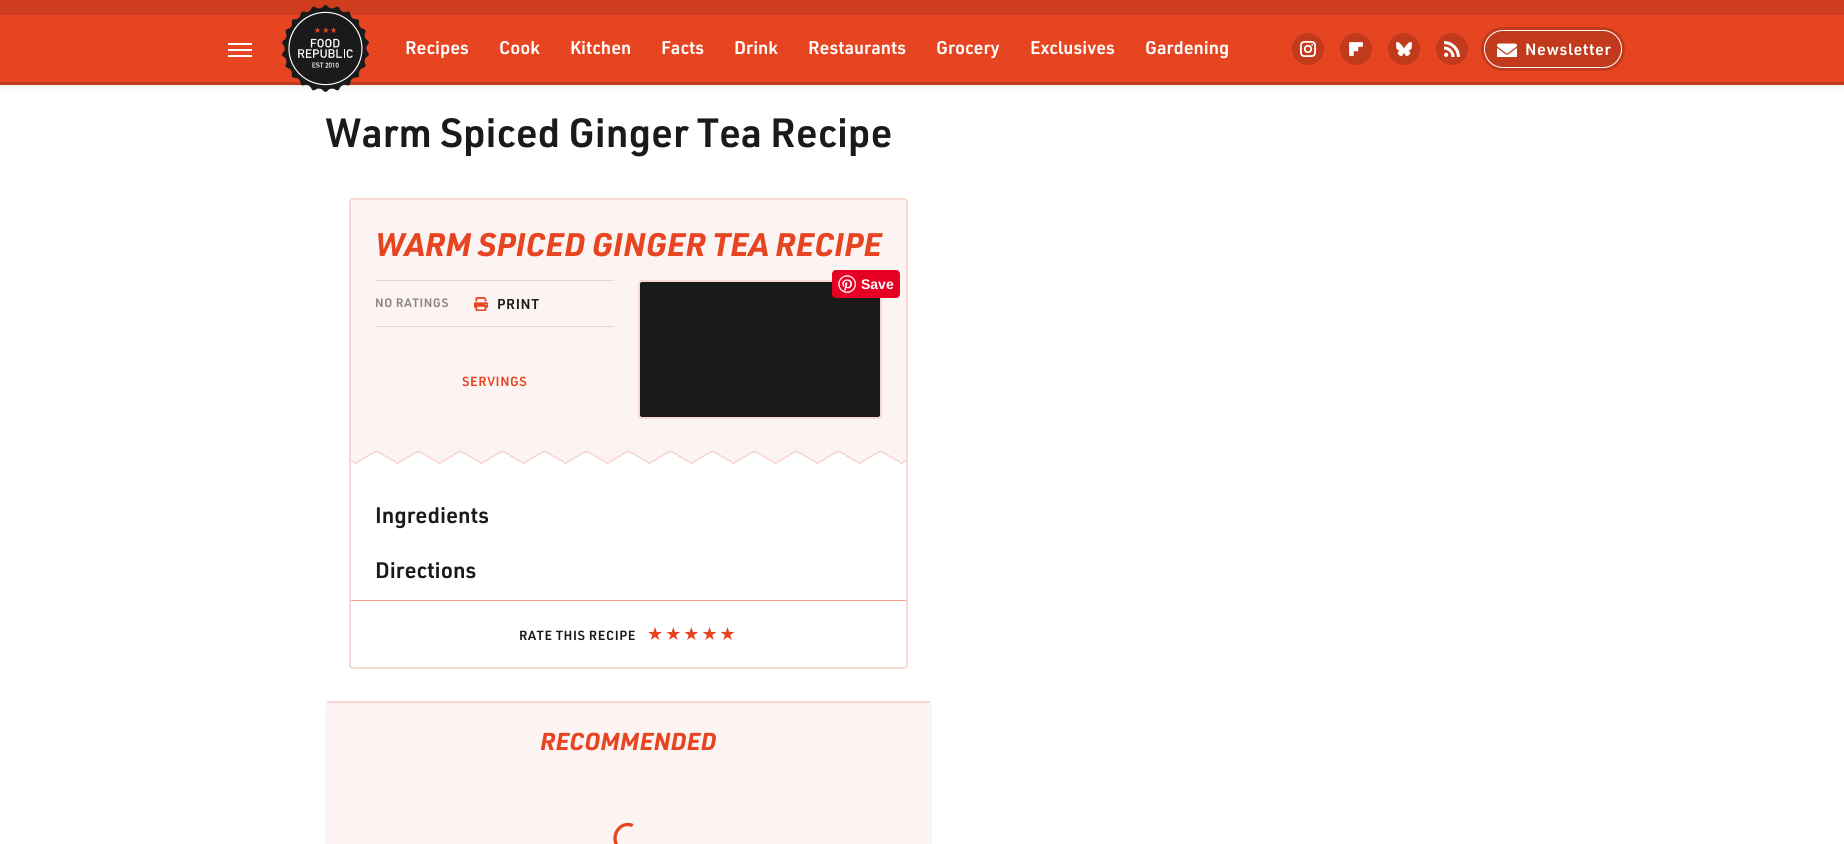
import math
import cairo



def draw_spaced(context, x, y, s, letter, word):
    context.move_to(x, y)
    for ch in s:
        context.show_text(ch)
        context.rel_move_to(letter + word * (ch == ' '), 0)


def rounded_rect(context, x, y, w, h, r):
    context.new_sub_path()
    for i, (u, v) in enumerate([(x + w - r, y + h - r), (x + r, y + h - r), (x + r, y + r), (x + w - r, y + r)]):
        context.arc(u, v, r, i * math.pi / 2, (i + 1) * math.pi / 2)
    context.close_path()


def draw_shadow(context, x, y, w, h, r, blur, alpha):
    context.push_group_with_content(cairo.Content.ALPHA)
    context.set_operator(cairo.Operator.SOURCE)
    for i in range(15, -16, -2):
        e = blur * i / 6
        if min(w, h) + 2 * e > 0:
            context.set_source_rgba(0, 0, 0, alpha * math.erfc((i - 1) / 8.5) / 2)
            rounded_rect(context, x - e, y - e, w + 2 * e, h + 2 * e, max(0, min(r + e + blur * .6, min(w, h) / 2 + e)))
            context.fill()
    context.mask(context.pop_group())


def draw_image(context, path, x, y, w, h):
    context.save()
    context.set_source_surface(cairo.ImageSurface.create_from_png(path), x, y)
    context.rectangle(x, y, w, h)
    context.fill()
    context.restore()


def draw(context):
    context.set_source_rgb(1, 1, 1)
    context.paint()
    context.set_source_rgb(0, 0, 0)
    draw_shadow(context, 0, 1, 1844, 85, 0, 4, 0.1)
    context.set_source_rgb(231 / 255, 69 / 255, 34 / 255)
    context.rectangle(0, 15, 1844, 67)
    context.fill()
    context.set_source_rgb(193 / 255, 58 / 255, 28 / 255)
    context.rectangle(0, 82, 1844, 3)
    context.fill()
    context.set_source_rgb(206 / 255, 62 / 255, 30 / 255)
    context.rectangle(0, 0, 1844, 15)
    context.fill()
    context.set_source_rgb(1, 1, 1)
    context.rectangle(228, 43, 24, 2)
    context.fill()
    context.rectangle(228, 49, 24, 2)
    context.fill()
    context.rectangle(228, 55, 24, 2)
    context.fill()
    draw_image(context, "images/1.png", 282, 5, 87, 87)
    context.set_source_rgb(193 / 255, 58 / 255, 28 / 255)
    context.arc(1308, 49, 16, 0, 2 * math.pi)
    context.fill()
    draw_image(context, "images/2.png", 1300, 41, 16, 16)
    context.arc(1356, 49, 16, 0, 2 * math.pi)
    context.fill()
    draw_image(context, "images/3.png", 1349, 42, 14, 14)
    context.arc(1404, 49, 16, 0, 2 * math.pi)
    context.fill()
    draw_image(context, "images/4.png", 1396, 42, 16, 14)
    context.arc(1452, 49, 16, 0, 2 * math.pi)
    context.fill()
    draw_image(context, "images/5.png", 1444, 41, 16, 16)
    rounded_rect(context, 1482.5, 28.5, 141, 41, 20.5)
    context.set_line_width(3)
    context.stroke()
    rounded_rect(context, 1484.5, 30.5, 137, 37, 18.5)
    context.fill_preserve()
    context.set_source_rgb(1, 1, 1)
    context.set_line_width(1)
    context.stroke()
    draw_image(context, "images/6.png", 1497, 43, 20, 14)
    rounded_rect(context, 350, 199, 557, 469, 3)
    context.set_source_rgb(247 / 255, 218 / 255, 212 / 255)
    context.set_line_width(2)
    context.stroke()
    context.set_source_rgb(251 / 255, 244 / 255, 243 / 255)
    context.rectangle(351, 200, 555, 241)
    context.fill()
    context.set_source_rgb(26 / 255, 26 / 255, 26 / 255)
    rounded_rect(context, 639, 281, 242, 137, 3)
    context.fill_preserve()
    context.set_source_rgb(247 / 255, 218 / 255, 212 / 255)
    context.stroke()
    context.set_source_rgb(230 / 255, 0, 35 / 255)
    rounded_rect(context, 832, 270, 68, 28, 4)
    context.fill()
    draw_image(context, "images/7.png", 838, 275, 18, 18)
    context.set_source_rgb(225 / 255, 217 / 255, 217 / 255)
    context.rectangle(375, 280, 239, 1)
    context.fill()
    context.rectangle(375, 326, 239, 1)
    context.fill()
    draw_image(context, "images/8.png", 474, 297, 14, 14)
    gradient = cairo.LinearGradient(349, 427, 320, 477)
    gradient.add_color_stop_rgba(0.5, 247 / 255, 218 / 255, 212 / 255, 1)
    gradient.add_color_stop_rgba(0.5, 1, 1, 1, 1)
    context.set_source(gradient)
    context.rectangle(351, 460, 5, 4)
    context.fill()
    gradient = cairo.LinearGradient(391, 427, 362, 477)
    gradient.add_color_stop_rgba(0.5, 247 / 255, 218 / 255, 212 / 255, 1)
    gradient.add_color_stop_rgba(0.5, 1, 1, 1, 1)
    context.set_source(gradient)
    context.rectangle(376, 451, 22, 13)
    context.fill()
    gradient = cairo.LinearGradient(433, 427, 404, 477)
    gradient.add_color_stop_rgba(0.5, 247 / 255, 218 / 255, 212 / 255, 1)
    gradient.add_color_stop_rgba(0.5, 1, 1, 1, 1)
    context.set_source(gradient)
    context.rectangle(418, 451, 22, 13)
    context.fill()
    gradient = cairo.LinearGradient(475, 427, 446, 477)
    gradient.add_color_stop_rgba(0.5, 247 / 255, 218 / 255, 212 / 255, 1)
    gradient.add_color_stop_rgba(0.5, 1, 1, 1, 1)
    context.set_source(gradient)
    context.rectangle(460, 451, 22, 13)
    context.fill()
    gradient = cairo.LinearGradient(517, 427, 488, 477)
    gradient.add_color_stop_rgba(0.5, 247 / 255, 218 / 255, 212 / 255, 1)
    gradient.add_color_stop_rgba(0.5, 1, 1, 1, 1)
    context.set_source(gradient)
    context.rectangle(502, 451, 22, 13)
    context.fill()
    gradient = cairo.LinearGradient(559, 427, 530, 477)
    gradient.add_color_stop_rgba(0.5, 247 / 255, 218 / 255, 212 / 255, 1)
    gradient.add_color_stop_rgba(0.5, 1, 1, 1, 1)
    context.set_source(gradient)
    context.rectangle(544, 451, 22, 13)
    context.fill()
    gradient = cairo.LinearGradient(601, 427, 572, 477)
    gradient.add_color_stop_rgba(0.5, 247 / 255, 218 / 255, 212 / 255, 1)
    gradient.add_color_stop_rgba(0.5, 1, 1, 1, 1)
    context.set_source(gradient)
    context.rectangle(586, 451, 22, 13)
    context.fill()
    gradient = cairo.LinearGradient(643, 427, 614, 477)
    gradient.add_color_stop_rgba(0.5, 247 / 255, 218 / 255, 212 / 255, 1)
    gradient.add_color_stop_rgba(0.5, 1, 1, 1, 1)
    context.set_source(gradient)
    context.rectangle(628, 451, 22, 13)
    context.fill()
    gradient = cairo.LinearGradient(685, 427, 656, 477)
    gradient.add_color_stop_rgba(0.5, 247 / 255, 218 / 255, 212 / 255, 1)
    gradient.add_color_stop_rgba(0.5, 1, 1, 1, 1)
    context.set_source(gradient)
    context.rectangle(670, 451, 22, 13)
    context.fill()
    gradient = cairo.LinearGradient(727, 427, 698, 477)
    gradient.add_color_stop_rgba(0.5, 247 / 255, 218 / 255, 212 / 255, 1)
    gradient.add_color_stop_rgba(0.5, 1, 1, 1, 1)
    context.set_source(gradient)
    context.rectangle(712, 451, 22, 13)
    context.fill()
    gradient = cairo.LinearGradient(769, 427, 740, 477)
    gradient.add_color_stop_rgba(0.5, 247 / 255, 218 / 255, 212 / 255, 1)
    gradient.add_color_stop_rgba(0.5, 1, 1, 1, 1)
    context.set_source(gradient)
    context.rectangle(754, 451, 22, 13)
    context.fill()
    gradient = cairo.LinearGradient(811, 427, 782, 477)
    gradient.add_color_stop_rgba(0.5, 247 / 255, 218 / 255, 212 / 255, 1)
    gradient.add_color_stop_rgba(0.5, 1, 1, 1, 1)
    context.set_source(gradient)
    context.rectangle(796, 451, 22, 13)
    context.fill()
    gradient = cairo.LinearGradient(853, 427, 824, 477)
    gradient.add_color_stop_rgba(0.5, 247 / 255, 218 / 255, 212 / 255, 1)
    gradient.add_color_stop_rgba(0.5, 1, 1, 1, 1)
    context.set_source(gradient)
    context.rectangle(838, 451, 22, 13)
    context.fill()
    gradient = cairo.LinearGradient(895, 427, 866, 477)
    gradient.add_color_stop_rgba(0.5, 247 / 255, 218 / 255, 212 / 255, 1)
    gradient.add_color_stop_rgba(0.5, 1, 1, 1, 1)
    context.set_source(gradient)
    context.rectangle(880, 451, 22, 13)
    context.fill()
    gradient = cairo.LinearGradient(362, 427, 391, 477)
    gradient.add_color_stop_rgba(0.5, 247 / 255, 218 / 255, 212 / 255, 1)
    gradient.add_color_stop_rgba(0.5, 247 / 255, 218 / 255, 212 / 255, 0)
    context.set_source(gradient)
    context.rectangle(356, 450, 21, 14)
    context.fill()
    gradient = cairo.LinearGradient(404, 427, 433, 477)
    gradient.add_color_stop_rgba(0.5, 247 / 255, 218 / 255, 212 / 255, 1)
    gradient.add_color_stop_rgba(0.5, 247 / 255, 218 / 255, 212 / 255, 0)
    context.set_source(gradient)
    context.rectangle(398, 450, 21, 14)
    context.fill()
    gradient = cairo.LinearGradient(446, 427, 475, 477)
    gradient.add_color_stop_rgba(0.5, 247 / 255, 218 / 255, 212 / 255, 1)
    gradient.add_color_stop_rgba(0.5, 247 / 255, 218 / 255, 212 / 255, 0)
    context.set_source(gradient)
    context.rectangle(440, 450, 21, 14)
    context.fill()
    gradient = cairo.LinearGradient(488, 427, 517, 477)
    gradient.add_color_stop_rgba(0.5, 247 / 255, 218 / 255, 212 / 255, 1)
    gradient.add_color_stop_rgba(0.5, 247 / 255, 218 / 255, 212 / 255, 0)
    context.set_source(gradient)
    context.rectangle(482, 450, 21, 14)
    context.fill()
    gradient = cairo.LinearGradient(530, 427, 559, 477)
    gradient.add_color_stop_rgba(0.5, 247 / 255, 218 / 255, 212 / 255, 1)
    gradient.add_color_stop_rgba(0.5, 247 / 255, 218 / 255, 212 / 255, 0)
    context.set_source(gradient)
    context.rectangle(524, 450, 21, 14)
    context.fill()
    gradient = cairo.LinearGradient(572, 427, 601, 477)
    gradient.add_color_stop_rgba(0.5, 247 / 255, 218 / 255, 212 / 255, 1)
    gradient.add_color_stop_rgba(0.5, 247 / 255, 218 / 255, 212 / 255, 0)
    context.set_source(gradient)
    context.rectangle(566, 450, 21, 14)
    context.fill()
    gradient = cairo.LinearGradient(614, 427, 643, 477)
    gradient.add_color_stop_rgba(0.5, 247 / 255, 218 / 255, 212 / 255, 1)
    gradient.add_color_stop_rgba(0.5, 247 / 255, 218 / 255, 212 / 255, 0)
    context.set_source(gradient)
    context.rectangle(608, 450, 21, 14)
    context.fill()
    gradient = cairo.LinearGradient(656, 427, 685, 477)
    gradient.add_color_stop_rgba(0.5, 247 / 255, 218 / 255, 212 / 255, 1)
    gradient.add_color_stop_rgba(0.5, 247 / 255, 218 / 255, 212 / 255, 0)
    context.set_source(gradient)
    context.rectangle(650, 450, 21, 14)
    context.fill()
    gradient = cairo.LinearGradient(698, 427, 727, 477)
    gradient.add_color_stop_rgba(0.5, 247 / 255, 218 / 255, 212 / 255, 1)
    gradient.add_color_stop_rgba(0.5, 247 / 255, 218 / 255, 212 / 255, 0)
    context.set_source(gradient)
    context.rectangle(692, 450, 21, 14)
    context.fill()
    gradient = cairo.LinearGradient(740, 427, 769, 477)
    gradient.add_color_stop_rgba(0.5, 247 / 255, 218 / 255, 212 / 255, 1)
    gradient.add_color_stop_rgba(0.5, 247 / 255, 218 / 255, 212 / 255, 0)
    context.set_source(gradient)
    context.rectangle(734, 450, 21, 14)
    context.fill()
    gradient = cairo.LinearGradient(782, 427, 811, 477)
    gradient.add_color_stop_rgba(0.5, 247 / 255, 218 / 255, 212 / 255, 1)
    gradient.add_color_stop_rgba(0.5, 247 / 255, 218 / 255, 212 / 255, 0)
    context.set_source(gradient)
    context.rectangle(776, 450, 21, 14)
    context.fill()
    gradient = cairo.LinearGradient(824, 427, 853, 477)
    gradient.add_color_stop_rgba(0.5, 247 / 255, 218 / 255, 212 / 255, 1)
    gradient.add_color_stop_rgba(0.5, 247 / 255, 218 / 255, 212 / 255, 0)
    context.set_source(gradient)
    context.rectangle(818, 450, 21, 14)
    context.fill()
    gradient = cairo.LinearGradient(866, 427, 895, 477)
    gradient.add_color_stop_rgba(0.5, 247 / 255, 218 / 255, 212 / 255, 1)
    gradient.add_color_stop_rgba(0.5, 247 / 255, 218 / 255, 212 / 255, 0)
    context.set_source(gradient)
    context.rectangle(860, 450, 21, 14)
    context.fill()
    gradient = cairo.LinearGradient(908, 427, 937, 477)
    gradient.add_color_stop_rgba(0.5, 247 / 255, 218 / 255, 212 / 255, 1)
    gradient.add_color_stop_rgba(0.5, 1, 1, 1, 1)
    context.set_source(gradient)
    context.rectangle(902, 460, 4, 4)
    context.fill()
    gradient = cairo.LinearGradient(349, 425, 320, 475)
    gradient.add_color_stop_rgba(0.5, 251 / 255, 244 / 255, 243 / 255, 1)
    gradient.add_color_stop_rgba(0.5, 251 / 255, 244 / 255, 243 / 255, 0)
    context.set_source(gradient)
    context.rectangle(351, 441, 5, 21)
    context.fill()
    gradient = cairo.LinearGradient(391, 425, 362, 475)
    gradient.add_color_stop_rgba(0.5, 251 / 255, 244 / 255, 243 / 255, 1)
    gradient.add_color_stop_rgba(0.5, 251 / 255, 244 / 255, 243 / 255, 0)
    context.set_source(gradient)
    context.rectangle(377, 441, 21, 21)
    context.fill()
    gradient = cairo.LinearGradient(433, 425, 404, 475)
    gradient.add_color_stop_rgba(0.5, 251 / 255, 244 / 255, 243 / 255, 1)
    gradient.add_color_stop_rgba(0.5, 251 / 255, 244 / 255, 243 / 255, 0)
    context.set_source(gradient)
    context.rectangle(419, 441, 21, 21)
    context.fill()
    gradient = cairo.LinearGradient(475, 425, 446, 475)
    gradient.add_color_stop_rgba(0.5, 251 / 255, 244 / 255, 243 / 255, 1)
    gradient.add_color_stop_rgba(0.5, 251 / 255, 244 / 255, 243 / 255, 0)
    context.set_source(gradient)
    context.rectangle(461, 441, 21, 21)
    context.fill()
    gradient = cairo.LinearGradient(517, 425, 488, 475)
    gradient.add_color_stop_rgba(0.5, 251 / 255, 244 / 255, 243 / 255, 1)
    gradient.add_color_stop_rgba(0.5, 251 / 255, 244 / 255, 243 / 255, 0)
    context.set_source(gradient)
    context.rectangle(503, 441, 21, 21)
    context.fill()
    gradient = cairo.LinearGradient(559, 425, 530, 475)
    gradient.add_color_stop_rgba(0.5, 251 / 255, 244 / 255, 243 / 255, 1)
    gradient.add_color_stop_rgba(0.5, 251 / 255, 244 / 255, 243 / 255, 0)
    context.set_source(gradient)
    context.rectangle(545, 441, 21, 21)
    context.fill()
    gradient = cairo.LinearGradient(601, 425, 572, 475)
    gradient.add_color_stop_rgba(0.5, 251 / 255, 244 / 255, 243 / 255, 1)
    gradient.add_color_stop_rgba(0.5, 251 / 255, 244 / 255, 243 / 255, 0)
    context.set_source(gradient)
    context.rectangle(587, 441, 21, 21)
    context.fill()
    gradient = cairo.LinearGradient(643, 425, 614, 475)
    gradient.add_color_stop_rgba(0.5, 251 / 255, 244 / 255, 243 / 255, 1)
    gradient.add_color_stop_rgba(0.5, 251 / 255, 244 / 255, 243 / 255, 0)
    context.set_source(gradient)
    context.rectangle(629, 441, 21, 21)
    context.fill()
    gradient = cairo.LinearGradient(685, 425, 656, 475)
    gradient.add_color_stop_rgba(0.5, 251 / 255, 244 / 255, 243 / 255, 1)
    gradient.add_color_stop_rgba(0.5, 251 / 255, 244 / 255, 243 / 255, 0)
    context.set_source(gradient)
    context.rectangle(671, 441, 21, 21)
    context.fill()
    gradient = cairo.LinearGradient(727, 425, 698, 475)
    gradient.add_color_stop_rgba(0.5, 251 / 255, 244 / 255, 243 / 255, 1)
    gradient.add_color_stop_rgba(0.5, 251 / 255, 244 / 255, 243 / 255, 0)
    context.set_source(gradient)
    context.rectangle(713, 441, 21, 21)
    context.fill()
    gradient = cairo.LinearGradient(769, 425, 740, 475)
    gradient.add_color_stop_rgba(0.5, 251 / 255, 244 / 255, 243 / 255, 1)
    gradient.add_color_stop_rgba(0.5, 251 / 255, 244 / 255, 243 / 255, 0)
    context.set_source(gradient)
    context.rectangle(755, 441, 21, 21)
    context.fill()
    gradient = cairo.LinearGradient(811, 425, 782, 475)
    gradient.add_color_stop_rgba(0.5, 251 / 255, 244 / 255, 243 / 255, 1)
    gradient.add_color_stop_rgba(0.5, 251 / 255, 244 / 255, 243 / 255, 0)
    context.set_source(gradient)
    context.rectangle(797, 441, 21, 21)
    context.fill()
    gradient = cairo.LinearGradient(853, 425, 824, 475)
    gradient.add_color_stop_rgba(0.5, 251 / 255, 244 / 255, 243 / 255, 1)
    gradient.add_color_stop_rgba(0.5, 251 / 255, 244 / 255, 243 / 255, 0)
    context.set_source(gradient)
    context.rectangle(839, 441, 21, 21)
    context.fill()
    gradient = cairo.LinearGradient(895, 425, 866, 475)
    gradient.add_color_stop_rgba(0.5, 251 / 255, 244 / 255, 243 / 255, 1)
    gradient.add_color_stop_rgba(0.5, 251 / 255, 244 / 255, 243 / 255, 0)
    context.set_source(gradient)
    context.rectangle(881, 441, 21, 21)
    context.fill()
    gradient = cairo.LinearGradient(362, 425, 391, 475)
    gradient.add_color_stop_rgba(0.5, 251 / 255, 244 / 255, 243 / 255, 1)
    gradient.add_color_stop_rgba(0.5, 251 / 255, 244 / 255, 243 / 255, 0)
    context.set_source(gradient)
    context.rectangle(356, 441, 21, 21)
    context.fill()
    gradient = cairo.LinearGradient(404, 425, 433, 475)
    gradient.add_color_stop_rgba(0.5, 251 / 255, 244 / 255, 243 / 255, 1)
    gradient.add_color_stop_rgba(0.5, 251 / 255, 244 / 255, 243 / 255, 0)
    context.set_source(gradient)
    context.rectangle(398, 441, 21, 21)
    context.fill()
    gradient = cairo.LinearGradient(446, 425, 475, 475)
    gradient.add_color_stop_rgba(0.5, 251 / 255, 244 / 255, 243 / 255, 1)
    gradient.add_color_stop_rgba(0.5, 251 / 255, 244 / 255, 243 / 255, 0)
    context.set_source(gradient)
    context.rectangle(440, 441, 21, 21)
    context.fill()
    gradient = cairo.LinearGradient(488, 425, 517, 475)
    gradient.add_color_stop_rgba(0.5, 251 / 255, 244 / 255, 243 / 255, 1)
    gradient.add_color_stop_rgba(0.5, 251 / 255, 244 / 255, 243 / 255, 0)
    context.set_source(gradient)
    context.rectangle(482, 441, 21, 21)
    context.fill()
    gradient = cairo.LinearGradient(530, 425, 559, 475)
    gradient.add_color_stop_rgba(0.5, 251 / 255, 244 / 255, 243 / 255, 1)
    gradient.add_color_stop_rgba(0.5, 251 / 255, 244 / 255, 243 / 255, 0)
    context.set_source(gradient)
    context.rectangle(524, 441, 21, 21)
    context.fill()
    gradient = cairo.LinearGradient(572, 425, 601, 475)
    gradient.add_color_stop_rgba(0.5, 251 / 255, 244 / 255, 243 / 255, 1)
    gradient.add_color_stop_rgba(0.5, 251 / 255, 244 / 255, 243 / 255, 0)
    context.set_source(gradient)
    context.rectangle(566, 441, 21, 21)
    context.fill()
    gradient = cairo.LinearGradient(614, 425, 643, 475)
    gradient.add_color_stop_rgba(0.5, 251 / 255, 244 / 255, 243 / 255, 1)
    gradient.add_color_stop_rgba(0.5, 251 / 255, 244 / 255, 243 / 255, 0)
    context.set_source(gradient)
    context.rectangle(608, 441, 21, 21)
    context.fill()
    gradient = cairo.LinearGradient(656, 425, 685, 475)
    gradient.add_color_stop_rgba(0.5, 251 / 255, 244 / 255, 243 / 255, 1)
    gradient.add_color_stop_rgba(0.5, 251 / 255, 244 / 255, 243 / 255, 0)
    context.set_source(gradient)
    context.rectangle(650, 441, 21, 21)
    context.fill()
    gradient = cairo.LinearGradient(698, 425, 727, 475)
    gradient.add_color_stop_rgba(0.5, 251 / 255, 244 / 255, 243 / 255, 1)
    gradient.add_color_stop_rgba(0.5, 251 / 255, 244 / 255, 243 / 255, 0)
    context.set_source(gradient)
    context.rectangle(692, 441, 21, 21)
    context.fill()
    gradient = cairo.LinearGradient(740, 425, 769, 475)
    gradient.add_color_stop_rgba(0.5, 251 / 255, 244 / 255, 243 / 255, 1)
    gradient.add_color_stop_rgba(0.5, 251 / 255, 244 / 255, 243 / 255, 0)
    context.set_source(gradient)
    context.rectangle(734, 441, 21, 21)
    context.fill()
    gradient = cairo.LinearGradient(782, 425, 811, 475)
    gradient.add_color_stop_rgba(0.5, 251 / 255, 244 / 255, 243 / 255, 1)
    gradient.add_color_stop_rgba(0.5, 251 / 255, 244 / 255, 243 / 255, 0)
    context.set_source(gradient)
    context.rectangle(776, 441, 21, 21)
    context.fill()
    gradient = cairo.LinearGradient(824, 425, 853, 475)
    gradient.add_color_stop_rgba(0.5, 251 / 255, 244 / 255, 243 / 255, 1)
    gradient.add_color_stop_rgba(0.5, 251 / 255, 244 / 255, 243 / 255, 0)
    context.set_source(gradient)
    context.rectangle(818, 441, 21, 21)
    context.fill()
    gradient = cairo.LinearGradient(866, 425, 895, 475)
    gradient.add_color_stop_rgba(0.5, 251 / 255, 244 / 255, 243 / 255, 1)
    gradient.add_color_stop_rgba(0.5, 251 / 255, 244 / 255, 243 / 255, 0)
    context.set_source(gradient)
    context.rectangle(860, 441, 21, 21)
    context.fill()
    gradient = cairo.LinearGradient(908, 425, 937, 475)
    gradient.add_color_stop_rgba(0.5, 251 / 255, 244 / 255, 243 / 255, 1)
    gradient.add_color_stop_rgba(0.5, 251 / 255, 244 / 255, 243 / 255, 0)
    context.set_source(gradient)
    context.rectangle(902, 441, 4, 21)
    context.fill()
    context.set_source_rgb(249 / 255, 160 / 255, 141 / 255)
    context.rectangle(351, 600, 555, 1)
    context.fill()
    context.set_source_rgb(251 / 255, 244 / 255, 243 / 255)
    rounded_rect(context, 325, 701, 607, 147, 4)
    context.fill()
    context.set_source_rgb(247 / 255, 218 / 255, 212 / 255)
    context.rectangle(327, 701, 603, 2)
    context.fill()
    context.set_source_rgb(231 / 255, 69 / 255, 34 / 255)
    context.new_path()
    context.move_to(633.5, 824)
    context.curve_to(615, 817, 604.5, 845, 623, 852)
    context.line_to(624, 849)
    context.curve_to(610, 843.5, 618, 821.5, 632, 827)
    context.close_path()
    context.fill()
    context.select_font_face("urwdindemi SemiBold")
    context.set_font_size(18)
    context.set_source_rgb(1, 1, 1)
    context.move_to(405, 54)
    context.show_text("Recipes")
    context.move_to(499, 54)
    context.show_text("Cook")
    context.move_to(570, 54)
    context.show_text("Kitchen")
    context.move_to(661, 54)
    context.show_text("Facts")
    context.move_to(734, 54)
    context.show_text("Drink")
    context.move_to(808, 54)
    context.show_text("Restaurants")
    context.move_to(936, 54)
    context.show_text("Grocery")
    context.move_to(1030, 54)
    context.show_text("Exclusives")
    context.move_to(1145, 54)
    context.show_text("Gardening")
    context.set_font_size(16)
    draw_spaced(context, 1525, 55, "Newsletter", 0.6, 0)
    context.set_font_size(40)
    context.set_source_rgb(26 / 255, 26 / 255, 26 / 255)
    context.move_to(325, 147)
    context.show_text("Warm Spiced Ginger Tea Recipe")
    context.select_font_face("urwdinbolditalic", cairo.FontSlant.ITALIC, cairo.FontWeight.BOLD)
    context.set_font_size(32)
    context.set_source_rgb(231 / 255, 69 / 255, 34 / 255)
    context.move_to(375, 256)
    context.show_text("WARM SPICED GINGER TEA RECIPE")
    context.select_font_face("Liberation Sans", cairo.FontSlant.NORMAL, cairo.FontWeight.BOLD)
    context.set_font_size(14)
    context.set_source_rgb(1, 1, 1)
    context.move_to(861, 289)
    context.show_text("Save")
    context.select_font_face("urwdindemi SemiBold")
    context.set_font_size(12)
    context.set_source_rgb(139 / 255, 131 / 255, 131 / 255)
    draw_spaced(context, 375, 307, "NO RATINGS", 0.6, 0)
    context.set_font_size(14)
    context.set_source_rgb(26 / 255, 26 / 255, 26 / 255)
    draw_spaced(context, 497, 309, "PRINT", 0.6, 0)
    context.set_font_size(13)
    context.set_source_rgb(231 / 255, 69 / 255, 34 / 255)
    draw_spaced(context, 462, 386, "SERVINGS", 0.6, 0)
    context.set_font_size(22)
    context.set_source_rgb(26 / 255, 26 / 255, 26 / 255)
    context.move_to(375, 523)
    context.show_text("Ingredients")
    context.move_to(375, 578)
    context.show_text("Directions")
    context.set_font_size(13)
    draw_spaced(context, 519, 640, "RATE THIS RECIPE", 0.6, 0)
    context.select_font_face("DejaVu Sans")
    context.set_font_size(18)
    gradient = cairo.LinearGradient(647, 634, 738, 634)
    gradient.add_color_stop_rgba(0.99, 231 / 255, 69 / 255, 34 / 255, 1)
    gradient.add_color_stop_rgba(0.99, 1, 1, 1, 1)
    context.set_source(gradient)
    draw_spaced(context, 647, 640, "★★★★★", 2, 0)
    context.select_font_face("urwdinbolditalic", cairo.FontSlant.ITALIC, cairo.FontWeight.BOLD)
    context.set_font_size(24)
    context.set_source_rgb(231 / 255, 69 / 255, 34 / 255)
    context.move_to(540, 750)
    context.show_text("RECOMMENDED")


surface = cairo.ImageSurface(cairo.Format.RGB24, 1844, 844)
context = cairo.Context(surface)
options = cairo.FontOptions()
options.set_hint_metrics(cairo.HintMetrics.OFF)
options.set_hint_style(cairo.HintStyle.NONE)
context.set_font_options(options)
context.set_miter_limit(4)
draw(context)
surface.write_to_png("out.png")
